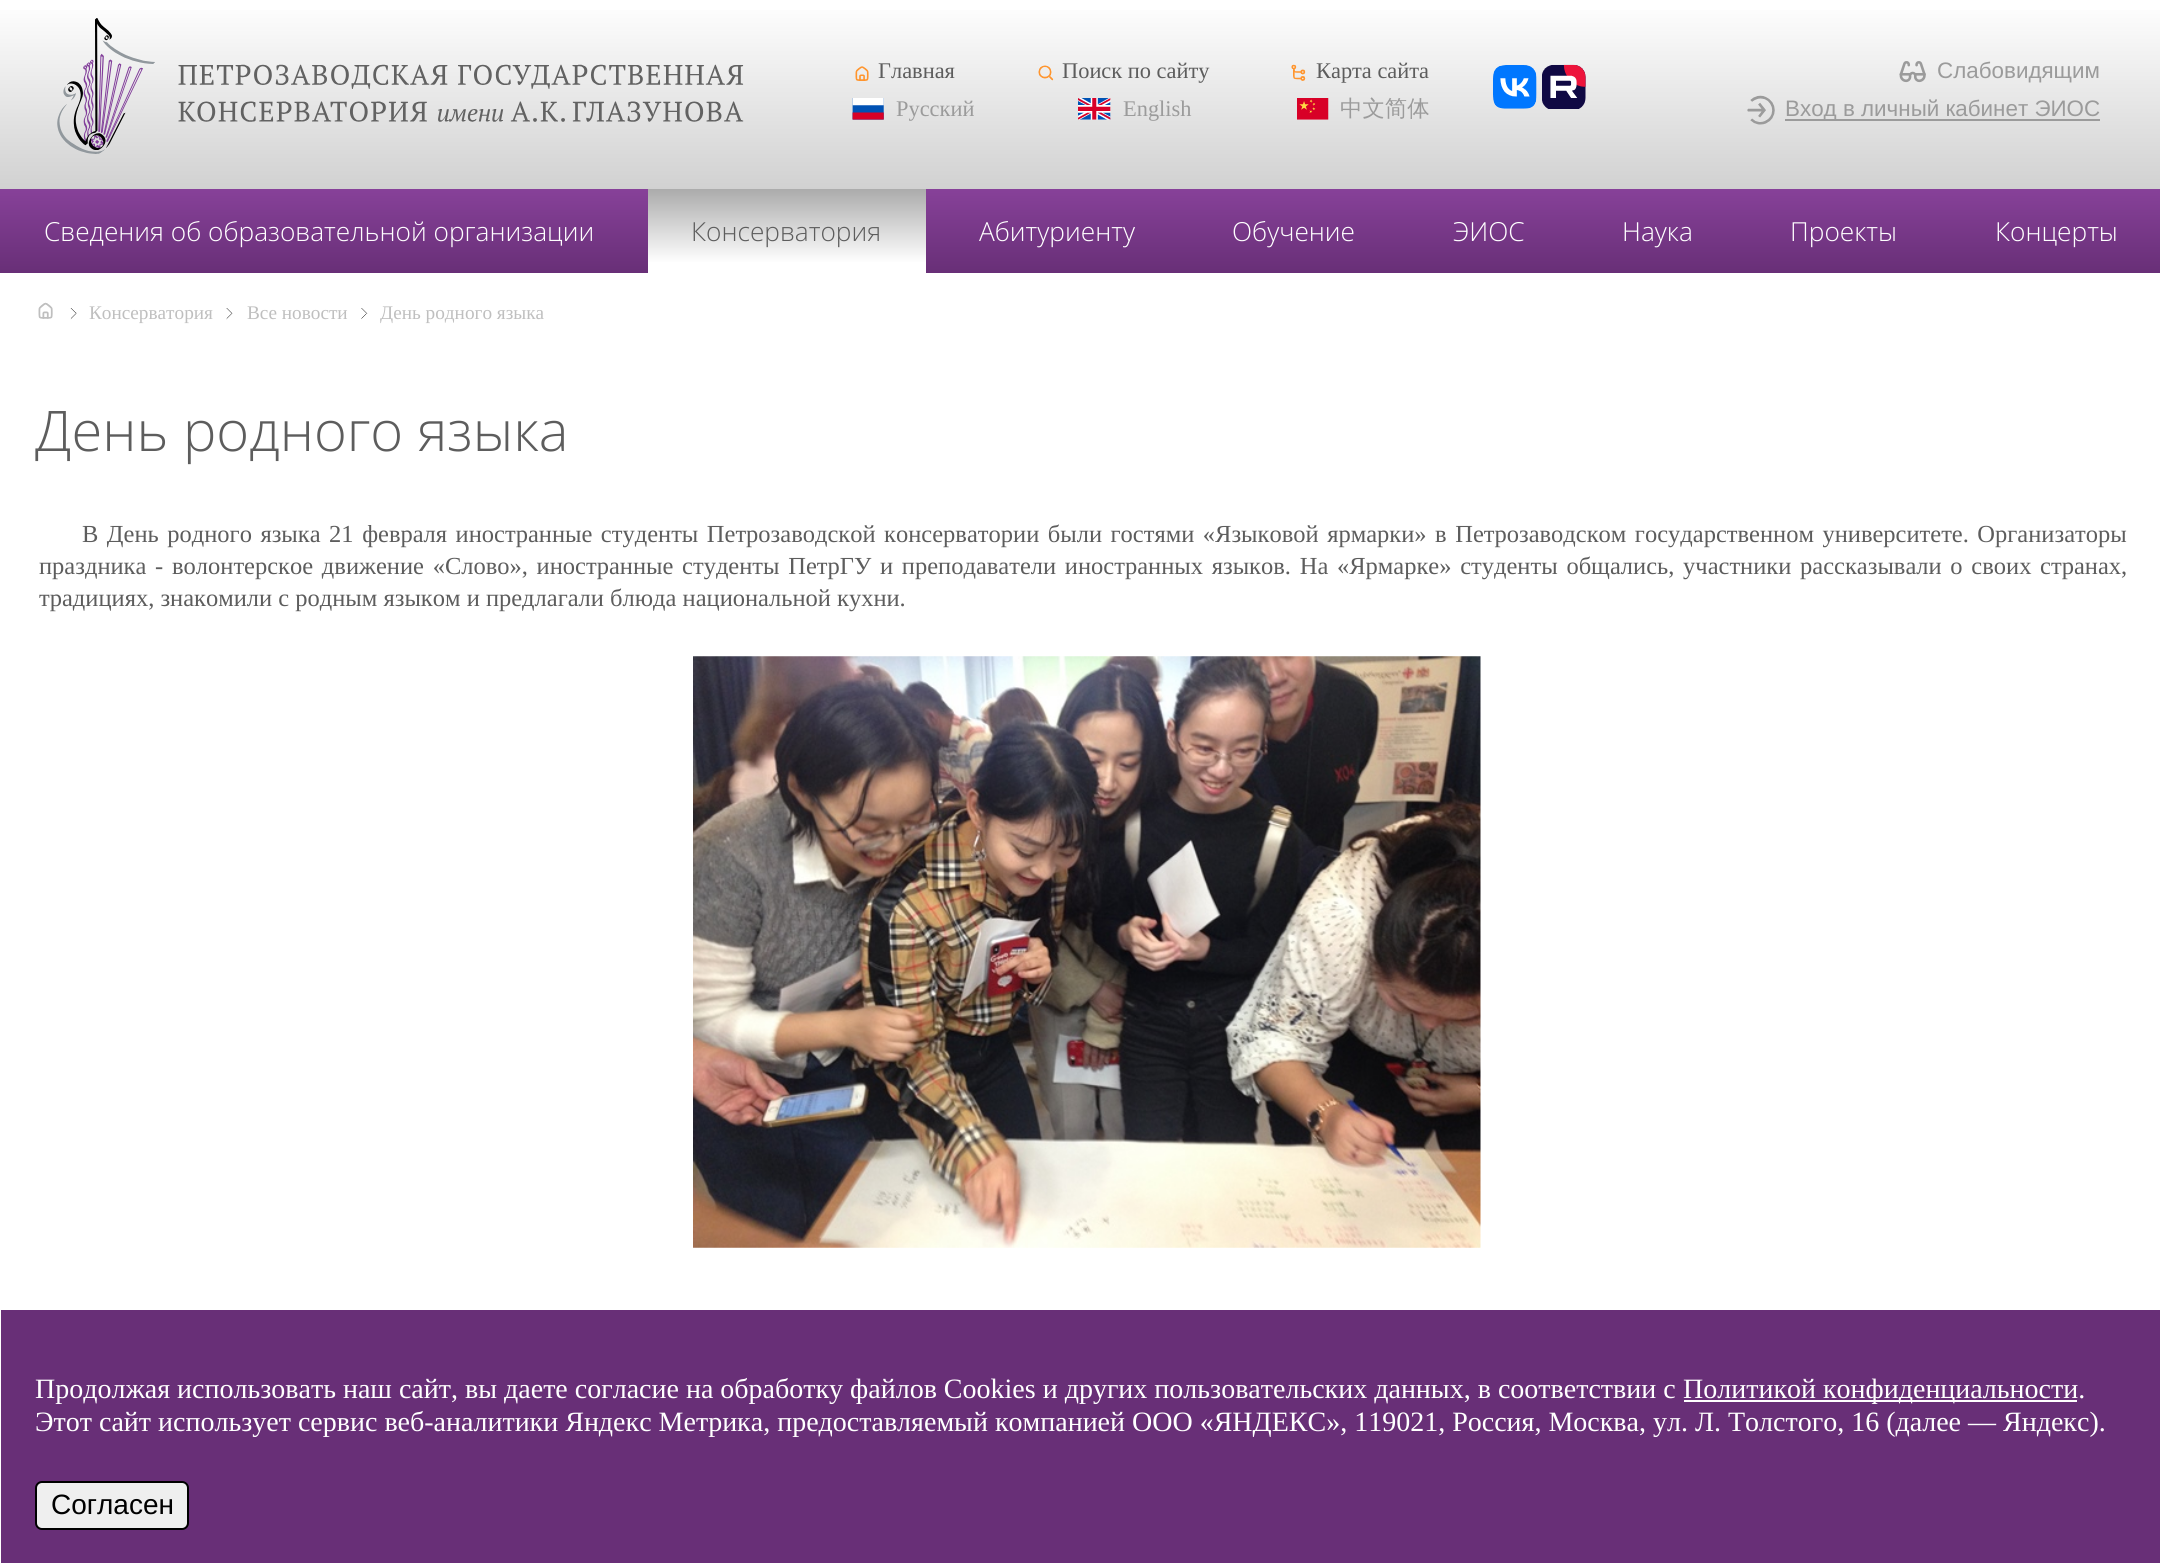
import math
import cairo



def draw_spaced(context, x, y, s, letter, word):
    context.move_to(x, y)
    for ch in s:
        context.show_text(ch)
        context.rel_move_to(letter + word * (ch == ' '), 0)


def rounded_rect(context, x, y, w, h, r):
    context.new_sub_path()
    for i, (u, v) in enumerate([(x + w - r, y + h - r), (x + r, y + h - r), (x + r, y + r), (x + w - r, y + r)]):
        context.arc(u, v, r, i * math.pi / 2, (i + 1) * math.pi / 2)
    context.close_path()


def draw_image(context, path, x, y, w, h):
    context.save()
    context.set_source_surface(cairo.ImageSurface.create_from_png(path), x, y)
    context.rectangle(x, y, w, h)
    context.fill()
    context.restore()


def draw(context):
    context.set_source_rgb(1, 1, 1)
    context.paint()
    gradient = cairo.LinearGradient(1081, 0, 1081, 189)
    gradient.add_color_stop_rgba(0, 1, 1, 1, 1)
    gradient.add_color_stop_rgba(1, 209 / 255, 209 / 255, 209 / 255, 1)
    context.set_source(gradient)
    context.rectangle(0, 10, 2160, 179)
    context.fill()
    draw_image(context, "images/1.png", 57, 18, 687, 136)
    draw_image(context, "images/2.png", 855, 66, 14, 15)
    draw_image(context, "images/3.png", 1038, 65, 16, 16)
    draw_image(context, "images/4.png", 1291, 64, 15, 17)
    draw_image(context, "images/5.png", 852, 98, 32, 22)
    draw_image(context, "images/6.png", 1078, 98, 33, 22)
    draw_image(context, "images/7.png", 1297, 98, 32, 22)
    draw_image(context, "images/8.png", 1493, 65, 44, 44)
    draw_image(context, "images/9.png", 1542, 64, 44, 45)
    draw_image(context, "images/10.png", 1899, 61, 27, 22)
    draw_image(context, "images/11.png", 1747, 95, 28, 30)
    context.set_source_rgb(155 / 255, 155 / 255, 155 / 255)
    context.rectangle(1785, 119, 315, 2)
    context.fill()
    gradient = cairo.LinearGradient(1081, 189, 1081, 273)
    gradient.add_color_stop_rgba(0, 135 / 255, 65 / 255, 153 / 255, 1)
    gradient.add_color_stop_rgba(1, 104 / 255, 47 / 255, 119 / 255, 1)
    context.set_source(gradient)
    context.rectangle(0, 189, 2160, 84)
    context.fill()
    gradient = cairo.LinearGradient(787, 189, 787, 273)
    gradient.add_color_stop_rgba(0, 171 / 255, 171 / 255, 171 / 255, 1)
    gradient.add_color_stop_rgba(0.88, 1, 1, 1, 1)
    context.set_source(gradient)
    context.rectangle(648, 189, 278, 84)
    context.fill()
    draw_image(context, "images/12.png", 38, 302, 15, 17)
    draw_image(context, "images/13.png", 70, 308, 7, 12)
    draw_image(context, "images/14.png", 226, 308, 7, 12)
    draw_image(context, "images/15.png", 361, 308, 7, 11)
    draw_image(context, "images/16.png", 693, 656, 788, 592)
    context.set_source_rgb(104 / 255, 47 / 255, 119 / 255)
    context.rectangle(1, 1310, 2159, 253)
    context.fill()
    context.set_source_rgb(1, 1, 1)
    context.rectangle(1684, 1400, 393, 2)
    context.fill()
    context.set_source_rgb(239 / 255, 239 / 255, 239 / 255)
    rounded_rect(context, 36, 1482, 152, 47, 6)
    context.fill_preserve()
    context.set_source_rgb(0, 0, 0)
    context.stroke()
    context.select_font_face("Liberation Serif")
    context.set_font_size(22.4)
    context.set_source_rgb(93 / 255, 93 / 255, 93 / 255)
    context.move_to(878, 78)
    context.show_text("Главная")
    context.move_to(1062, 78)
    context.show_text("Поиск по сайту")
    context.move_to(1316, 78)
    context.show_text("Карта сайта")
    context.set_source_rgb(155 / 255, 155 / 255, 155 / 255)
    context.move_to(896, 116)
    context.show_text("Русский")
    context.move_to(1123, 116)
    context.show_text("English")
    context.select_font_face("WenQuanYi Zen Hei Medium")
    context.move_to(1340, 116)
    context.show_text("中文简体")
    context.select_font_face("Liberation Sans")
    context.move_to(1937, 78)
    context.show_text("Слабовидящим")
    context.move_to(1785, 116)
    context.show_text("Вход в личный кабинет ЭИОС")
    context.select_font_face("Open Sans Light")
    context.set_font_size(26.25)
    context.set_source_rgb(1, 1, 1)
    context.move_to(44, 241)
    context.show_text("Сведения об образовательной организации")
    context.set_source_rgb(93 / 255, 93 / 255, 93 / 255)
    context.move_to(691, 241)
    context.show_text("Консерватория")
    context.set_source_rgb(1, 1, 1)
    context.move_to(979, 241)
    context.show_text("Абитуриенту")
    context.move_to(1232, 241)
    context.show_text("Обучение")
    context.move_to(1453, 241)
    context.show_text("ЭИОС")
    context.move_to(1622, 241)
    context.show_text("Наука")
    context.move_to(1790, 241)
    context.show_text("Проекты")
    context.move_to(1995, 241)
    context.show_text("Концерты")
    context.select_font_face("Liberation Serif")
    context.set_font_size(19.25)
    context.set_source_rgb(191 / 255, 191 / 255, 191 / 255)
    context.move_to(89, 319)
    context.show_text("Консерватория")
    context.move_to(247, 319)
    context.show_text("Все новости")
    context.move_to(380, 319)
    context.show_text("День родного языка")
    context.select_font_face("Open Sans Light")
    context.set_font_size(56)
    context.set_source_rgb(93 / 255, 93 / 255, 93 / 255)
    context.move_to(35, 451)
    context.show_text("День родного языка")
    context.select_font_face("Liberation Serif")
    context.set_font_size(24.5)
    draw_spaced(context, 82, 542, "В День родного языка 21 февраля иностранные студенты Петрозаводской консерватории были гостями «Языковой ярмарки» в Петрозаводском государственном университете. Организаторы", 0, 2.4)
    draw_spaced(context, 39, 574, "праздника - волонтерское движение «Слово», иностранные студенты ПетрГУ и преподаватели иностранных языков. На «Ярмарке» студенты общались, участники рассказывали о своих странах,", 0, 2.6)
    context.move_to(39, 606)
    context.show_text("традициях, знакомили с родным языком и предлагали блюда национальной кухни.")
    context.set_font_size(28)
    context.set_source_rgb(1, 1, 1)
    context.move_to(35, 1398)
    context.show_text("Продолжая использовать наш сайт, вы даете согласие на обработку файлов Cookies и других пользовательских данных, в соответствии с")
    context.move_to(1683, 1398)
    context.show_text("Политикой конфиденциальности.")
    context.move_to(35, 1431)
    context.show_text("Этот сайт использует сервис веб-аналитики Яндекс Метрика, предоставляемый компанией ООО «ЯНДЕКС», 119021, Россия, Москва, ул. Л. Толстого, 16 (далее — Яндекс).")
    context.select_font_face("Liberation Sans")
    context.set_source_rgb(0, 0, 0)
    context.move_to(51, 1514)
    context.show_text("Согласен")


surface = cairo.ImageSurface(cairo.Format.RGB24, 2160, 1563)
context = cairo.Context(surface)
options = cairo.FontOptions()
options.set_hint_metrics(cairo.HintMetrics.OFF)
options.set_hint_style(cairo.HintStyle.NONE)
context.set_font_options(options)
context.set_miter_limit(4)
draw(context)
surface.write_to_png("out.png")
